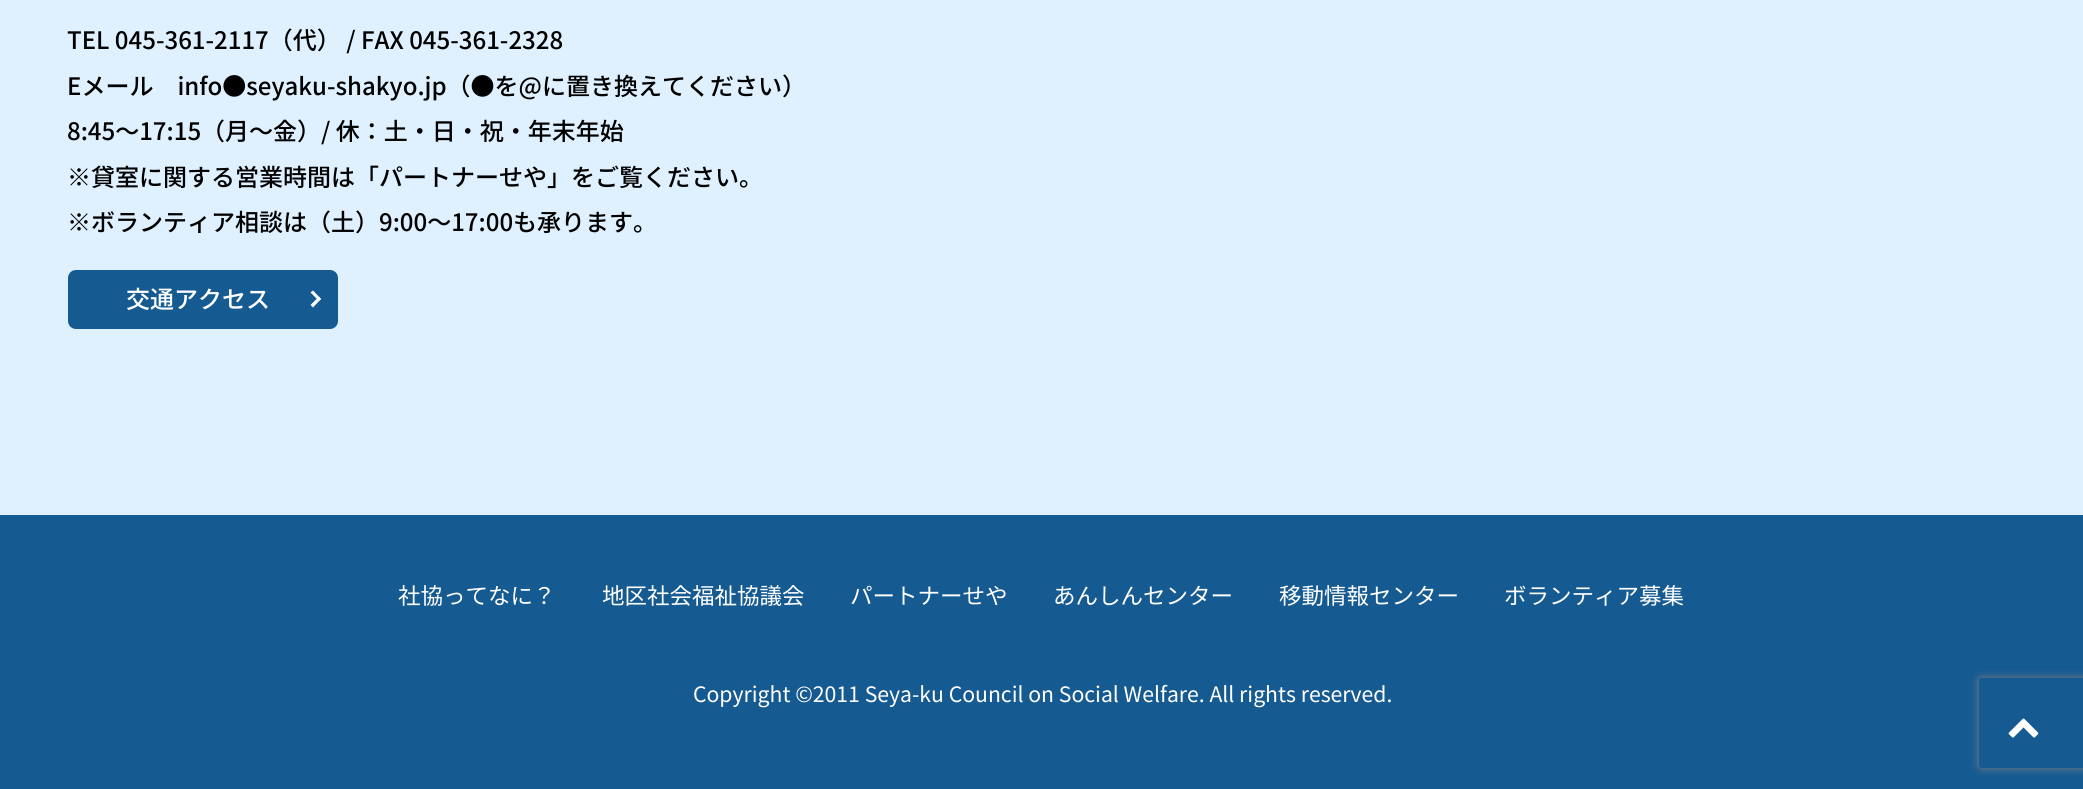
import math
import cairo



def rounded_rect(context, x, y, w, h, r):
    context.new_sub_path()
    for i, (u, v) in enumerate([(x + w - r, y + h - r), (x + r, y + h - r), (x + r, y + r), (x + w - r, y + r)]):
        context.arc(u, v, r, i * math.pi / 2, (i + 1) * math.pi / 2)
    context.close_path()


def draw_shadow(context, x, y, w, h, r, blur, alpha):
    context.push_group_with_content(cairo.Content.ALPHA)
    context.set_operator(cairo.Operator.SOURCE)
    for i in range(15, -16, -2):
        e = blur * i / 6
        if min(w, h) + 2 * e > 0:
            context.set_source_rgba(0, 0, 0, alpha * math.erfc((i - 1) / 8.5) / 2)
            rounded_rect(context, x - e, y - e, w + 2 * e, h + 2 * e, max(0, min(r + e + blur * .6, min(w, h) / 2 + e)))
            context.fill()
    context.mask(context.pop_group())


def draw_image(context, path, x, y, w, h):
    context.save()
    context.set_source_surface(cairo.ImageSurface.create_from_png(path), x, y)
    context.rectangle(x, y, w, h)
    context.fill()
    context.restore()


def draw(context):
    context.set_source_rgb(223 / 255, 240 / 255, 1)
    context.paint()
    context.set_source_rgb(22 / 255, 90 / 255, 146 / 255)
    rounded_rect(context, 69.5, 271.5, 267, 56, 6.5)
    context.fill_preserve()
    context.set_line_width(3)
    context.stroke()
    context.set_source_rgb(1, 1, 1)
    context.new_path()
    context.move_to(313, 290.5)
    context.line_to(321, 299)
    context.line_to(319, 301)
    context.line_to(310.5, 292.5)
    context.close_path()
    context.fill()
    context.new_path()
    context.move_to(319, 296.5)
    context.line_to(321, 299)
    context.line_to(313, 307.5)
    context.line_to(310.5, 305)
    context.close_path()
    context.fill()
    context.set_source_rgb(22 / 255, 90 / 255, 146 / 255)
    context.rectangle(0, 515, 2083, 274)
    context.fill()
    context.save()
    context.set_fill_rule(cairo.FillRule.EVEN_ODD)
    context.new_path()
    context.move_to(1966, 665)
    context.line_to(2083, 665)
    context.line_to(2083, 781)
    context.line_to(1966, 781)
    context.close_path()
    context.move_to(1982, 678)
    context.line_to(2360, 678)
    context.curve_to(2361.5, 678, 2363, 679.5, 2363, 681)
    context.line_to(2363, 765)
    context.curve_to(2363, 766.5, 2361.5, 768, 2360, 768)
    context.line_to(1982, 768)
    context.curve_to(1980.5, 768, 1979, 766.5, 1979, 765)
    context.line_to(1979, 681)
    context.curve_to(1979, 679.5, 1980.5, 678, 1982, 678)
    context.close_path()
    context.clip()
    context.set_source_rgb(128 / 255, 128 / 255, 128 / 255)
    draw_shadow(context, 1979, 678, 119, 90, 3, 4, 1)
    context.restore()
    draw_image(context, "images/1.png", 2008, 718, 31, 20)
    context.select_font_face("Noto Sans JP Medium")
    context.set_font_size(24)
    context.set_source_rgb(0, 0, 0)
    context.move_to(67, 49)
    context.show_text("TEL 045-361-2117（代） / FAX 045-361-2328")
    context.move_to(67, 95)
    context.show_text("Eメール　info●seyaku-shakyo.jp（●を@に置き換えてください）")
    context.move_to(67, 140)
    context.show_text("8:45～17:15（月～金）/ 休：土・日・祝・年末年始")
    context.move_to(67, 186)
    context.show_text("※貸室に関する営業時間は「パートナーせや」をご覧ください。")
    context.move_to(67, 231)
    context.show_text("※ボランティア相談は（土）9:00～17:00も承ります。")
    context.set_source_rgb(1, 1, 1)
    context.move_to(126, 308)
    context.show_text("交通アクセス")
    context.select_font_face("Noto Sans JP")
    context.set_font_size(22.5)
    context.move_to(398, 604)
    context.show_text("社協ってなに？")
    context.move_to(602, 604)
    context.show_text("地区社会福祉協議会")
    context.move_to(850, 604)
    context.show_text("パートナーせや")
    context.move_to(1053, 604)
    context.show_text("あんしんセンター")
    context.move_to(1279, 604)
    context.show_text("移動情報センター")
    context.move_to(1504, 604)
    context.show_text("ボランティア募集")
    context.set_font_size(21.2)
    context.move_to(693, 702)
    context.show_text("Copyright ©2011 Seya-ku Council on Social Welfare. All rights reserved.")


surface = cairo.ImageSurface(cairo.Format.RGB24, 2083, 789)
context = cairo.Context(surface)
options = cairo.FontOptions()
options.set_hint_metrics(cairo.HintMetrics.OFF)
options.set_hint_style(cairo.HintStyle.NONE)
context.set_font_options(options)
context.set_miter_limit(4)
draw(context)
surface.write_to_png("out.png")
